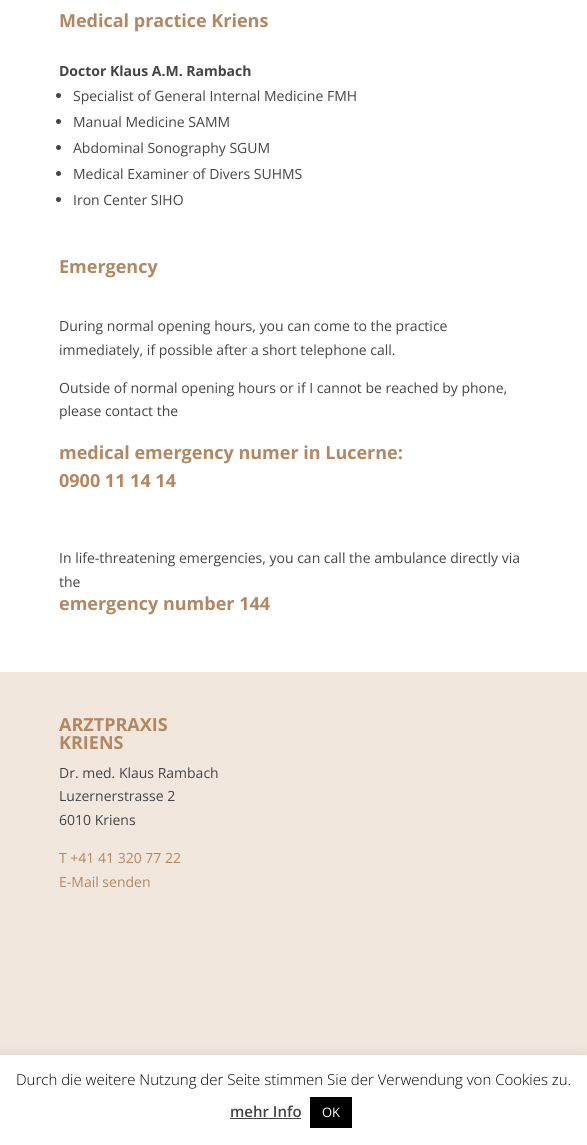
import math
import cairo



def rounded_rect(context, x, y, w, h, r):
    context.new_sub_path()
    for i, (u, v) in enumerate([(x + w - r, y + h - r), (x + r, y + h - r), (x + r, y + r), (x + w - r, y + r)]):
        context.arc(u, v, r, i * math.pi / 2, (i + 1) * math.pi / 2)
    context.close_path()


def draw_shadow(context, x, y, w, h, r, blur, alpha):
    context.push_group_with_content(cairo.Content.ALPHA)
    context.set_operator(cairo.Operator.SOURCE)
    for i in range(15, -16, -2):
        e = blur * i / 6
        if min(w, h) + 2 * e > 0:
            context.set_source_rgba(0, 0, 0, alpha * math.erfc((i - 1) / 8.5) / 2)
            rounded_rect(context, x - e, y - e, w + 2 * e, h + 2 * e, max(0, min(r + e + blur * .6, min(w, h) / 2 + e)))
            context.fill()
    context.mask(context.pop_group())


def draw(context):
    context.set_source_rgb(1, 1, 1)
    context.paint()
    context.set_source_rgb(68 / 255, 68 / 255, 68 / 255)
    context.arc(58.5, 95.5, 2.5, 0, 2 * math.pi)
    context.fill()
    context.arc(58.5, 121.5, 2.5, 0, 2 * math.pi)
    context.fill()
    context.arc(58.5, 147.5, 2.5, 0, 2 * math.pi)
    context.fill()
    context.arc(58.5, 173.5, 2.5, 0, 2 * math.pi)
    context.fill()
    context.arc(58.5, 199.5, 2.5, 0, 2 * math.pi)
    context.fill()
    context.set_source_rgb(241 / 255, 231 / 255, 221 / 255)
    context.rectangle(0, 672, 587, 383)
    context.fill()
    context.set_source_rgb(172 / 255, 171 / 255, 171 / 255)
    draw_shadow(context, 0, 1054, 587, 90, 0, 5, 0.3)
    context.set_source_rgb(1, 1, 1)
    context.rectangle(0, 1055, 587, 90)
    context.fill()
    context.set_source_rgb(68 / 255, 68 / 255, 68 / 255)
    context.rectangle(230, 1118, 71, 1)
    context.fill()
    context.set_source_rgb(0, 0, 0)
    context.rectangle(310, 1097, 42, 31)
    context.fill()
    context.select_font_face("Open Sans", cairo.FontSlant.NORMAL, cairo.FontWeight.BOLD)
    context.set_font_size(18)
    context.set_source_rgb(178 / 255, 135 / 255, 97 / 255)
    context.move_to(59, 27)
    context.show_text("Medical practice Kriens")
    context.set_font_size(14)
    context.set_source_rgb(68 / 255, 68 / 255, 68 / 255)
    context.move_to(59, 76)
    context.show_text("Doctor Klaus A.M. Rambach")
    context.select_font_face("Open Sans")
    context.move_to(73, 101)
    context.show_text("Specialist of General Internal Medicine FMH")
    context.move_to(73, 127)
    context.show_text("Manual Medicine SAMM")
    context.move_to(73, 153)
    context.show_text("Abdominal Sonography SGUM")
    context.move_to(73, 179)
    context.show_text("Medical Examiner of Divers SUHMS")
    context.move_to(73, 205)
    context.show_text("Iron Center SIHO")
    context.select_font_face("Open Sans", cairo.FontSlant.NORMAL, cairo.FontWeight.BOLD)
    context.set_font_size(18)
    context.set_source_rgb(178 / 255, 135 / 255, 97 / 255)
    context.move_to(59, 273)
    context.show_text("Emergency")
    context.select_font_face("Open Sans")
    context.set_font_size(14)
    context.set_source_rgb(68 / 255, 68 / 255, 68 / 255)
    context.move_to(59, 331)
    context.show_text("During normal opening hours, you can come to the practice")
    context.move_to(59, 355)
    context.show_text("immediately, if possible after a short telephone call.")
    context.move_to(59, 393)
    context.show_text("Outside of normal opening hours or if I cannot be reached by phone,")
    context.move_to(59, 416)
    context.show_text("please contact the")
    context.select_font_face("Open Sans", cairo.FontSlant.NORMAL, cairo.FontWeight.BOLD)
    context.set_font_size(18)
    context.set_source_rgb(178 / 255, 135 / 255, 97 / 255)
    context.move_to(59, 459)
    context.show_text("medical emergency numer in Lucerne:")
    context.move_to(59, 487)
    context.show_text("0900 11 14 14")
    context.select_font_face("Open Sans")
    context.set_font_size(14)
    context.set_source_rgb(68 / 255, 68 / 255, 68 / 255)
    context.move_to(59, 563)
    context.show_text("In life-threatening emergencies, you can call the ambulance directly via")
    context.move_to(59, 587)
    context.show_text("the")
    context.select_font_face("Open Sans", cairo.FontSlant.NORMAL, cairo.FontWeight.BOLD)
    context.set_font_size(18)
    context.set_source_rgb(178 / 255, 135 / 255, 97 / 255)
    context.move_to(59, 610)
    context.show_text("emergency number 144")
    context.move_to(59, 731)
    context.show_text("ARZTPRAXIS")
    context.move_to(59, 749)
    context.show_text("KRIENS")
    context.select_font_face("Open Sans")
    context.set_font_size(14)
    context.set_source_rgb(68 / 255, 68 / 255, 68 / 255)
    context.move_to(59, 778)
    context.show_text("Dr. med. Klaus Rambach")
    context.move_to(59, 801)
    context.show_text("Luzernerstrasse 2")
    context.move_to(59, 825)
    context.show_text("6010 Kriens")
    context.set_source_rgb(178 / 255, 135 / 255, 97 / 255)
    context.move_to(59, 863)
    context.show_text("T +41 41 320 77 22")
    context.move_to(59, 887)
    context.show_text("E-Mail senden")
    context.select_font_face("Open Sans Light")
    context.set_font_size(15)
    context.set_source_rgb(0, 0, 0)
    context.move_to(16, 1085)
    context.show_text("Durch die weitere Nutzung der Seite stimmen Sie der Verwendung von Cookies zu.")
    context.select_font_face("Open Sans SemiBold")
    context.set_source_rgb(68 / 255, 68 / 255, 68 / 255)
    context.move_to(230, 1117)
    context.show_text("mehr Info")
    context.select_font_face("Open Sans")
    context.set_font_size(13)
    context.set_source_rgb(1, 1, 1)
    context.move_to(322, 1117)
    context.show_text("OK")


surface = cairo.ImageSurface(cairo.Format.RGB24, 587, 1145)
context = cairo.Context(surface)
options = cairo.FontOptions()
options.set_hint_metrics(cairo.HintMetrics.OFF)
options.set_hint_style(cairo.HintStyle.NONE)
context.set_font_options(options)
context.set_miter_limit(4)
draw(context)
surface.write_to_png("out.png")
